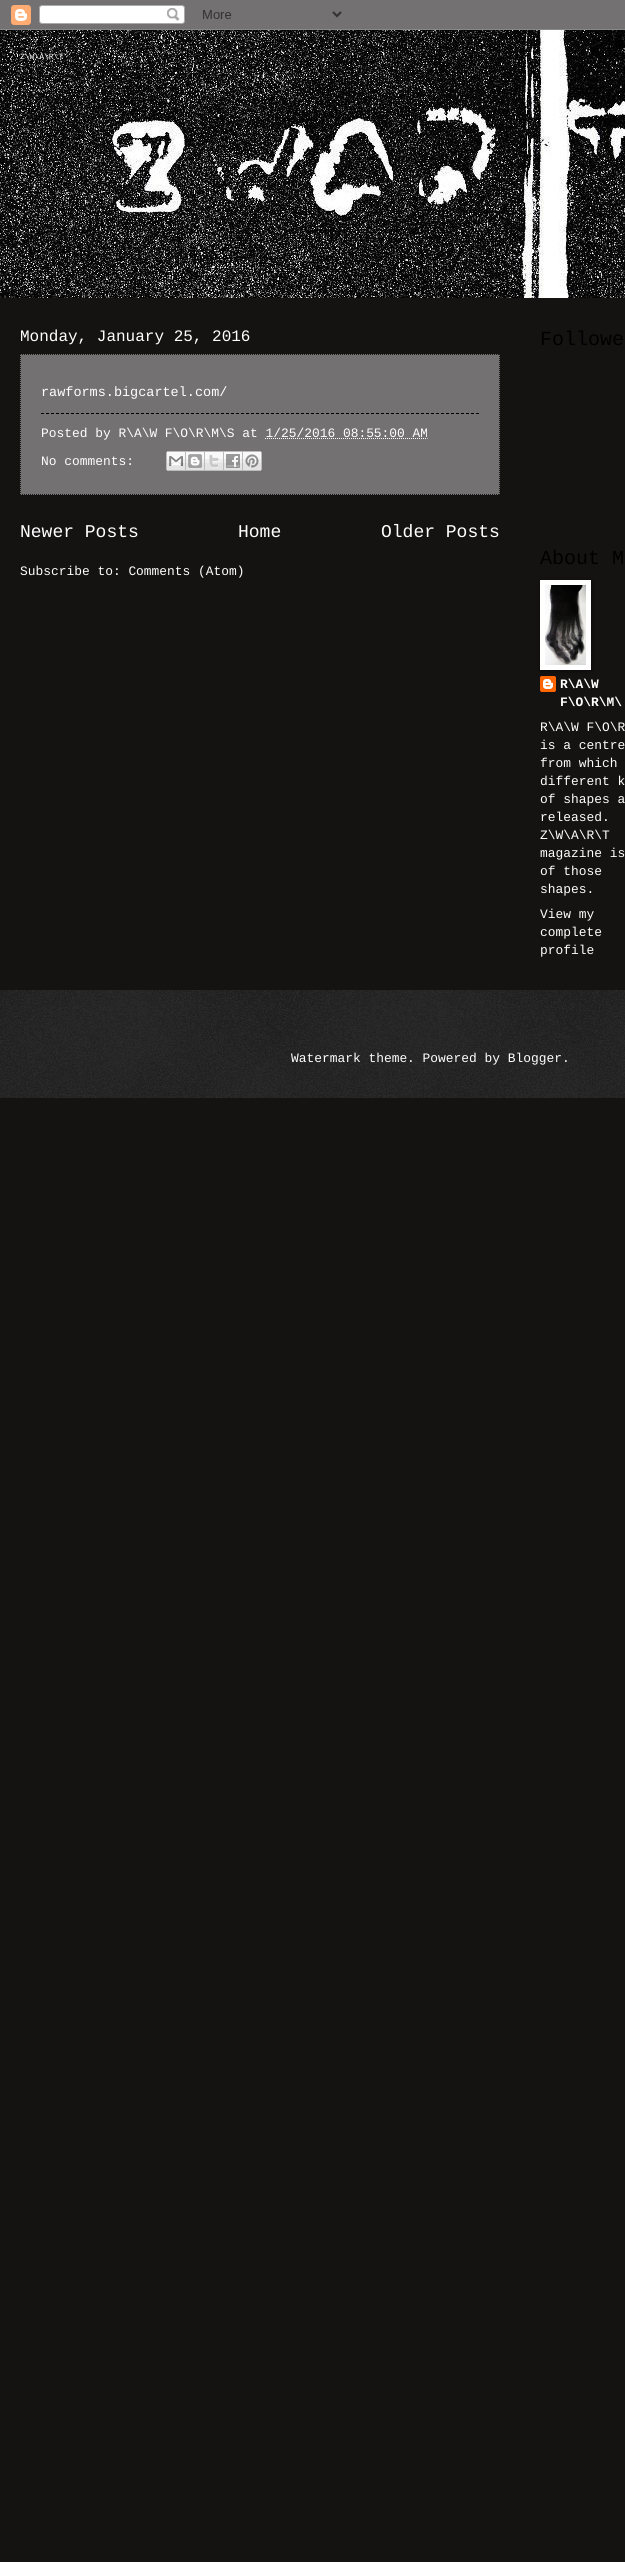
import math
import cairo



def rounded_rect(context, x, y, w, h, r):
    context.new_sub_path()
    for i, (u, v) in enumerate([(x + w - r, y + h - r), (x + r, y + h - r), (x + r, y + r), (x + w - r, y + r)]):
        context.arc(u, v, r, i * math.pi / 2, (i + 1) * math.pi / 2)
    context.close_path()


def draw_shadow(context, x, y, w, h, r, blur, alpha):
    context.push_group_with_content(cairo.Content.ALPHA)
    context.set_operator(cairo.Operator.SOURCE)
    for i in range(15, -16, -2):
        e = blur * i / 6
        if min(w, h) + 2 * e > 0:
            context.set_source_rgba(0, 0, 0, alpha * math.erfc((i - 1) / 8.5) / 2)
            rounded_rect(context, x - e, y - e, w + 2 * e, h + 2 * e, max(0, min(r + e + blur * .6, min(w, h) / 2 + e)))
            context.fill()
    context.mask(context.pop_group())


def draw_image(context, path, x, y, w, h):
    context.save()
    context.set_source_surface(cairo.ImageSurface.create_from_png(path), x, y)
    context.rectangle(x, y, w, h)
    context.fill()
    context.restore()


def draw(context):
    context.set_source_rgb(21 / 255, 18 / 255, 18 / 255)
    context.paint()
    draw_image(context, "images/1.png", 0, 0, 625, 30)
    draw_image(context, "images/2.png", 0, 30, 625, 268)
    context.set_source_rgb(115 / 255, 113 / 255, 113 / 255)
    context.rectangle(20, 354, 480, 141)
    context.fill()
    context.new_path()
    context.move_to(20, 354.5)
    context.line_to(500, 354.5)
    context.set_source_rgb(31 / 255, 27 / 255, 27 / 255)
    context.set_line_width(1)
    context.set_dash([1, 1])
    context.stroke()
    context.new_path()
    context.move_to(499.5, 354)
    context.line_to(499.5, 495)
    context.stroke()
    context.new_path()
    context.move_to(20, 494.5)
    context.line_to(500, 494.5)
    context.stroke()
    context.new_path()
    context.move_to(20.5, 354)
    context.line_to(20.5, 495)
    context.stroke()
    context.new_path()
    context.move_to(41, 413.5)
    context.line_to(479, 413.5)
    context.set_source_rgb(0, 0, 0)
    context.set_dash([3, 2])
    context.stroke()
    context.new_path()
    context.move_to(265, 438.5)
    context.line_to(427.5, 438.5)
    context.set_source_rgb(1, 1, 1)
    context.set_dash([1, 1])
    context.stroke()
    draw_image(context, "images/3.png", 166, 451, 20, 20)
    draw_image(context, "images/4.png", 186, 451, 19, 20)
    draw_image(context, "images/5.png", 205, 451, 19, 20)
    draw_image(context, "images/6.png", 224, 451, 19, 20)
    draw_image(context, "images/7.png", 243, 451, 19, 20)
    draw_image(context, "images/9.png", 540, 676, 16, 16)
    context.set_source_rgb(0, 0, 0)
    draw_shadow(context, 541, 581, 51, 90, 0, 2.5, 0.5)
    context.set_source_rgb(1, 1, 1)
    context.rectangle(540, 580, 51, 90)
    context.fill()
    draw_image(context, "images/8.png", 545, 585, 41, 80)
    context.set_source_rgb(0, 0, 0)
    context.rectangle(0, 990, 625, 108)
    context.fill()
    draw_image(context, "images/10.png", 0, 990, 625, 108)
    context.select_font_face("Liberation Mono")
    context.set_font_size(8)
    context.set_source_rgb(1, 1, 1)
    context.move_to(20, 59)
    context.show_text("Z\\W\\A\\R\\T")
    context.set_font_size(16)
    context.move_to(20, 341)
    context.show_text("Monday, January 25, 2016")
    context.set_font_size(13.5)
    context.move_to(41, 396)
    context.show_text("rawforms.bigcartel.com/")
    context.set_font_size(12.9)
    context.move_to(41, 437)
    context.show_text("Posted by R\\A\\W F\\O\\R\\M\\S at 1/25/2016 08:55:00 AM")
    context.move_to(41, 465)
    context.show_text("No comments:")
    context.set_font_size(18)
    context.move_to(20, 537)
    context.show_text("Newer Posts")
    context.move_to(238, 537)
    context.show_text("Home")
    context.move_to(381, 537)
    context.show_text("Older Posts")
    context.set_font_size(12.9)
    context.move_to(20, 575)
    context.show_text("Subscribe to: Comments (Atom)")
    context.set_font_size(20)
    context.set_source_rgb(0, 0, 0)
    context.move_to(540, 345)
    context.show_text("Followe")
    context.move_to(540, 564)
    context.show_text("About M")
    context.select_font_face("Liberation Mono", cairo.FontSlant.NORMAL, cairo.FontWeight.BOLD)
    context.set_font_size(12.9)
    context.set_source_rgb(1, 1, 1)
    context.move_to(560, 688)
    context.show_text("R\\A\\W")
    context.move_to(560, 706)
    context.show_text("F\\O\\R\\M\\")
    context.select_font_face("Liberation Mono")
    context.move_to(540, 731)
    context.show_text("R\\A\\W F\\O\\R")
    context.move_to(540, 749)
    context.show_text("is a centre")
    context.move_to(540, 767)
    context.show_text("from which")
    context.move_to(540, 785)
    context.show_text("different k")
    context.move_to(540, 803)
    context.show_text("of shapes a")
    context.move_to(540, 821)
    context.show_text("released.")
    context.move_to(540, 839)
    context.show_text("Z\\W\\A\\R\\T")
    context.move_to(540, 857)
    context.show_text("magazine is")
    context.move_to(540, 875)
    context.show_text("of those")
    context.move_to(540, 893)
    context.show_text("shapes.")
    context.move_to(540, 918)
    context.show_text("View my")
    context.move_to(540, 936)
    context.show_text("complete")
    context.move_to(540, 954)
    context.show_text("profile")
    context.move_to(291, 1062)
    context.show_text("Watermark theme. Powered by Blogger.")


surface = cairo.ImageSurface(cairo.Format.RGB24, 625, 2562)
context = cairo.Context(surface)
options = cairo.FontOptions()
options.set_hint_metrics(cairo.HintMetrics.OFF)
options.set_hint_style(cairo.HintStyle.NONE)
context.set_font_options(options)
context.set_miter_limit(4)
draw(context)
surface.write_to_png("out.png")
